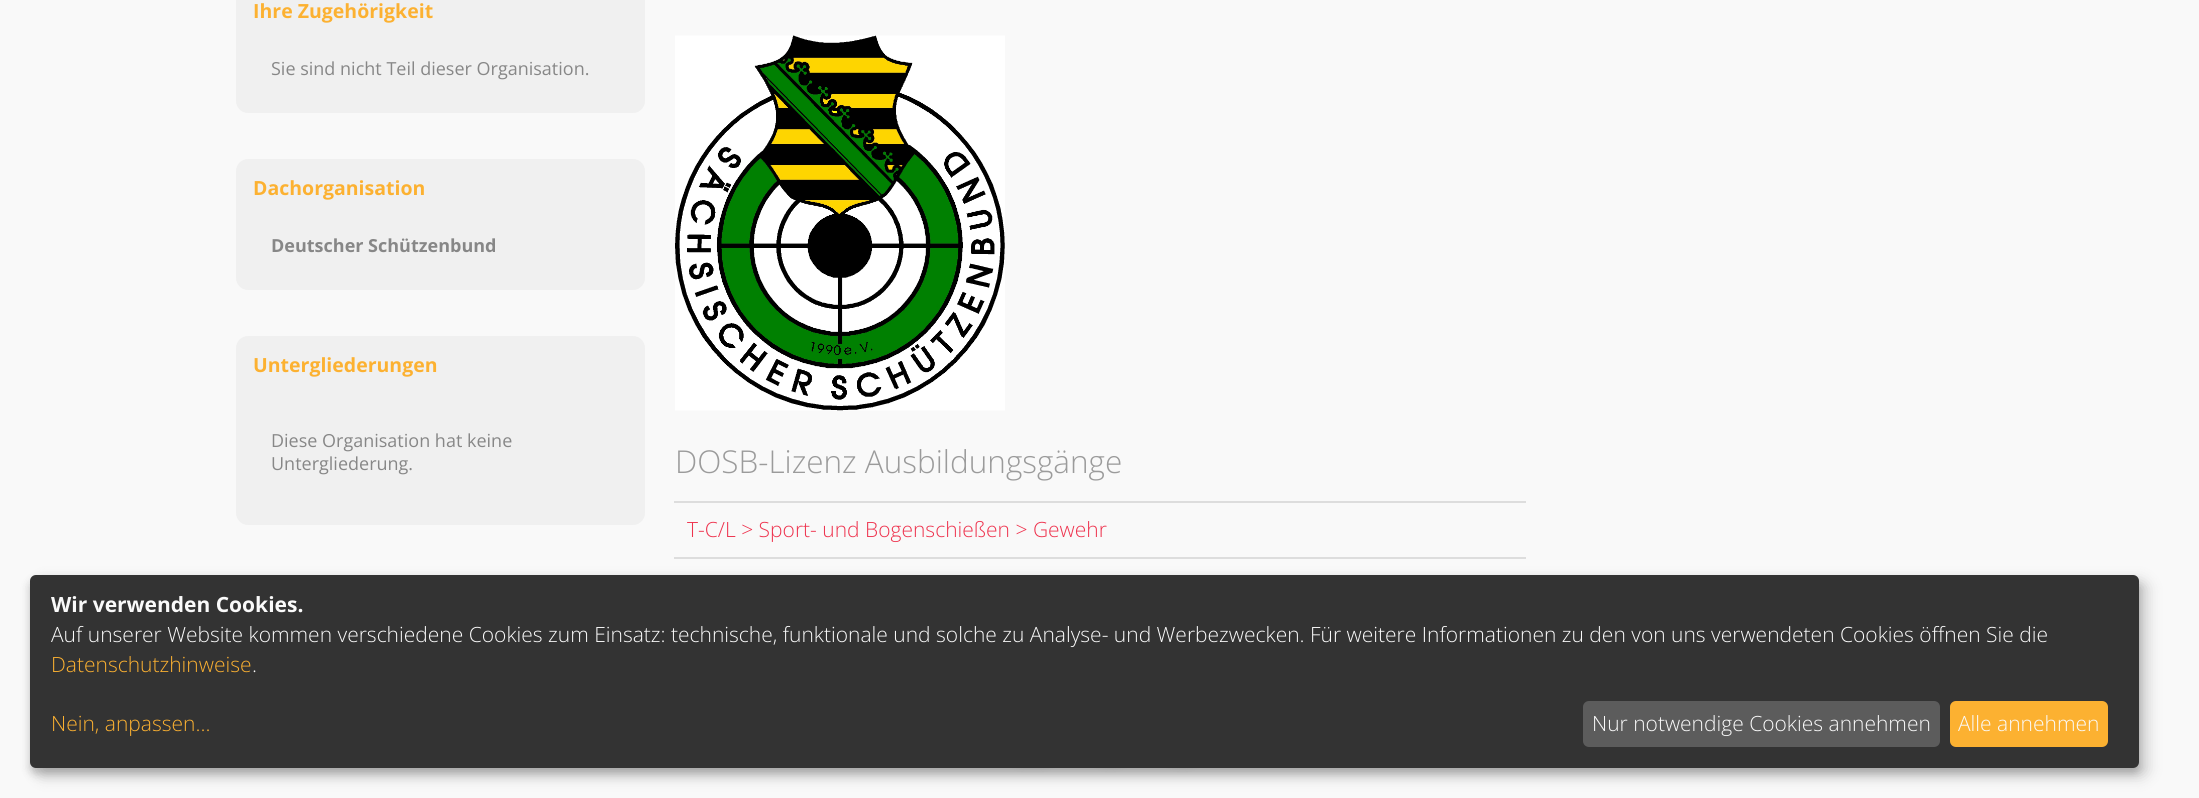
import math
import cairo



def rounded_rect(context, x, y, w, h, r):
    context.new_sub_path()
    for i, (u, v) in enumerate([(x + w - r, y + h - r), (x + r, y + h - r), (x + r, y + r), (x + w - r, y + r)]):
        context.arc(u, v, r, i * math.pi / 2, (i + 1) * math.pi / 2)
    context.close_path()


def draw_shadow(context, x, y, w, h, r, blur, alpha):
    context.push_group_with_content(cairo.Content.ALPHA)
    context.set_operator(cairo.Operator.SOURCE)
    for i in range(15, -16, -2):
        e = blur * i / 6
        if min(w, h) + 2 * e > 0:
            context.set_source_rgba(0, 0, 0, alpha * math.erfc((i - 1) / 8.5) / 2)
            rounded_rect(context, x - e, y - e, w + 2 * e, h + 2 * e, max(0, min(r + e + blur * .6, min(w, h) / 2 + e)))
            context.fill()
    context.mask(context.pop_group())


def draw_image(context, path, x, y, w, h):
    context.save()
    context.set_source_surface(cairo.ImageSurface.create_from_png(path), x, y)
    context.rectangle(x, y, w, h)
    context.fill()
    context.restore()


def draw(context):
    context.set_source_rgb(249 / 255, 249 / 255, 249 / 255)
    context.paint()
    context.set_source_rgb(240 / 255, 240 / 255, 240 / 255)
    rounded_rect(context, 236, -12, 409, 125, 12)
    context.fill()
    rounded_rect(context, 236, 159, 409, 131, 12)
    context.fill()
    rounded_rect(context, 236, 336, 409, 189, 12)
    context.fill()
    draw_image(context, "images/1.png", 675, 35, 330, 376)
    context.set_source_rgb(221 / 255, 221 / 255, 221 / 255)
    context.rectangle(674, 501, 852, 2)
    context.fill()
    context.rectangle(674, 557, 852, 2)
    context.fill()
    context.set_source_rgb(0, 0, 0)
    draw_shadow(context, 1001, 717, 63, 50, 25, 4, 0.07)
    draw_shadow(context, 1085, 717, 51, 50, 25, 4, 0.07)
    draw_shadow(context, 1157, 717, 51, 50, 25, 4, 0.07)
    draw_shadow(context, 38, 582, 2109, 194, 6, 7.5, 0.19)
    draw_shadow(context, 30, 581, 2109, 193, 6, 4.5, 0.2)
    context.set_source_rgb(51 / 255, 51 / 255, 51 / 255)
    rounded_rect(context, 30, 575, 2109, 193, 6)
    context.fill()
    context.set_source_rgb(92 / 255, 92 / 255, 92 / 255)
    rounded_rect(context, 1583, 701, 357, 46, 6)
    context.fill()
    context.set_source_rgb(252 / 255, 177 / 255, 49 / 255)
    rounded_rect(context, 1950, 701, 158, 46, 6)
    context.fill()
    context.select_font_face("Open Sans", cairo.FontSlant.NORMAL, cairo.FontWeight.BOLD)
    context.set_font_size(19.5)
    context.move_to(253, 18)
    context.show_text("Ihre Zugehörigkeit")
    context.select_font_face("Open Sans")
    context.set_font_size(18)
    context.set_source_rgb(135 / 255, 135 / 255, 135 / 255)
    context.move_to(271, 75)
    context.show_text("Sie sind nicht Teil dieser Organisation.")
    context.select_font_face("Open Sans", cairo.FontSlant.NORMAL, cairo.FontWeight.BOLD)
    context.set_font_size(19.5)
    context.set_source_rgb(252 / 255, 177 / 255, 49 / 255)
    context.move_to(253, 195)
    context.show_text("Dachorganisation")
    context.set_font_size(18)
    context.set_source_rgb(135 / 255, 135 / 255, 135 / 255)
    context.move_to(271, 252)
    context.show_text("Deutscher Schützenbund")
    context.set_font_size(19.5)
    context.set_source_rgb(252 / 255, 177 / 255, 49 / 255)
    context.move_to(253, 372)
    context.show_text("Untergliederungen")
    context.select_font_face("Open Sans")
    context.set_font_size(18)
    context.set_source_rgb(135 / 255, 135 / 255, 135 / 255)
    context.move_to(271, 447)
    context.show_text("Diese Organisation hat keine")
    context.move_to(271, 470)
    context.show_text("Untergliederung.")
    context.select_font_face("Open Sans Light")
    context.set_font_size(31.5)
    context.set_source_rgb(155 / 255, 155 / 255, 155 / 255)
    context.move_to(675, 473)
    context.show_text("DOSB-Lizenz Ausbildungsgänge")
    context.set_font_size(21)
    context.set_source_rgb(238 / 255, 51 / 255, 78 / 255)
    context.move_to(687, 537)
    context.show_text("T-C/L > Sport- und Bogenschießen > Gewehr")
    context.select_font_face("Open Sans", cairo.FontSlant.NORMAL, cairo.FontWeight.BOLD)
    context.set_source_rgb(250 / 255, 250 / 255, 250 / 255)
    context.move_to(51, 612)
    context.show_text("Wir verwenden Cookies.")
    context.select_font_face("Open Sans Light")
    context.move_to(51, 642)
    context.show_text("Auf unserer Website kommen verschiedene Cookies zum Einsatz: technische, funktionale und solche zu Analyse- und Werbezwecken. Für weitere Informationen zu den von uns verwendeten Cookies öffnen Sie die")
    context.set_source_rgb(252 / 255, 177 / 255, 49 / 255)
    context.move_to(51, 672)
    context.show_text("Datenschutzhinweise")
    context.set_source_rgb(250 / 255, 250 / 255, 250 / 255)
    context.move_to(252, 672)
    context.show_text(".")
    context.set_source_rgb(252 / 255, 177 / 255, 49 / 255)
    context.move_to(51, 731)
    context.show_text("Nein, anpassen...")
    context.set_source_rgb(250 / 255, 250 / 255, 250 / 255)
    context.move_to(1592, 731)
    context.show_text("Nur notwendige Cookies annehmen")
    context.move_to(1958, 731)
    context.show_text("Alle annehmen")


surface = cairo.ImageSurface(cairo.Format.RGB24, 2199, 798)
context = cairo.Context(surface)
options = cairo.FontOptions()
options.set_hint_metrics(cairo.HintMetrics.OFF)
options.set_hint_style(cairo.HintStyle.NONE)
context.set_font_options(options)
context.set_miter_limit(4)
draw(context)
surface.write_to_png("out.png")
